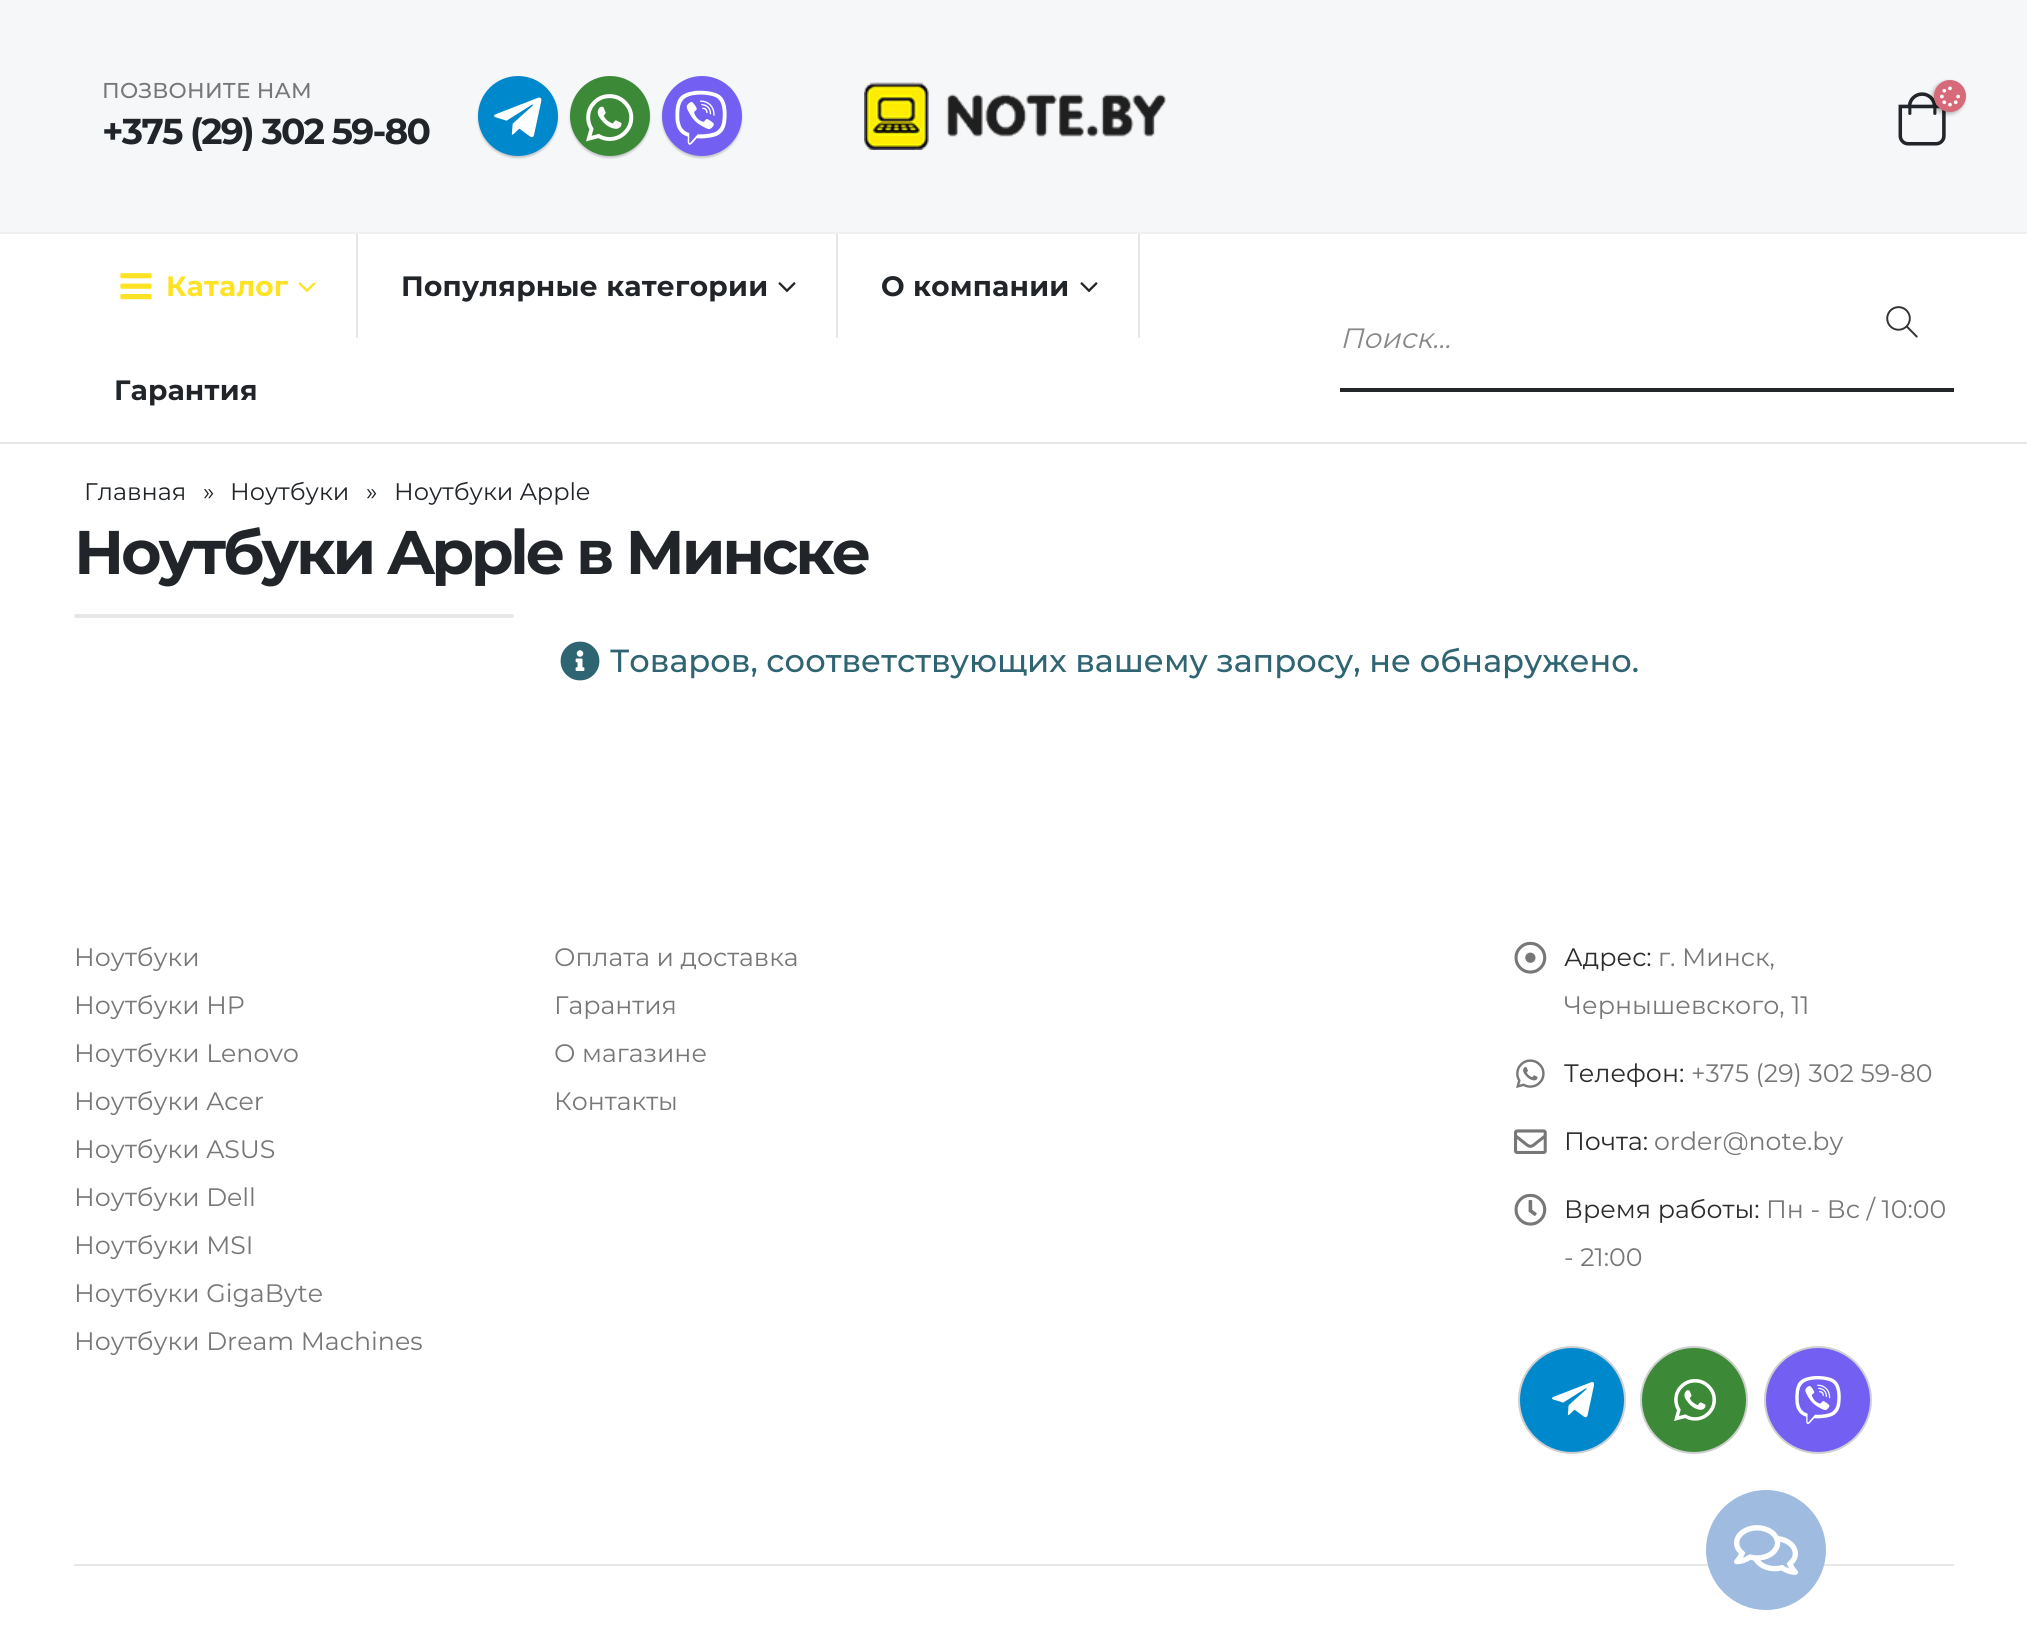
import math
import cairo



def draw_spaced(context, x, y, s, letter, word):
    context.move_to(x, y)
    for ch in s:
        context.show_text(ch)
        context.rel_move_to(letter + word * (ch == ' '), 0)


def rounded_rect(context, x, y, w, h, r):
    context.new_sub_path()
    for i, (u, v) in enumerate([(x + w - r, y + h - r), (x + r, y + h - r), (x + r, y + r), (x + w - r, y + r)]):
        context.arc(u, v, r, i * math.pi / 2, (i + 1) * math.pi / 2)
    context.close_path()


def draw_shadow(context, x, y, w, h, r, blur, alpha):
    context.push_group_with_content(cairo.Content.ALPHA)
    context.set_operator(cairo.Operator.SOURCE)
    for i in range(15, -16, -2):
        e = blur * i / 6
        if min(w, h) + 2 * e > 0:
            context.set_source_rgba(0, 0, 0, alpha * math.erfc((i - 1) / 8.5) / 2)
            rounded_rect(context, x - e, y - e, w + 2 * e, h + 2 * e, max(0, min(r + e + blur * .6, min(w, h) / 2 + e)))
            context.fill()
    context.mask(context.pop_group())


def draw_image(context, path, x, y, w, h):
    context.save()
    context.set_source_surface(cairo.ImageSurface.create_from_png(path), x, y)
    context.rectangle(x, y, w, h)
    context.fill()
    context.restore()


def draw(context):
    context.set_source_rgb(1, 1, 1)
    context.paint()
    context.set_source_rgb(246 / 255, 247 / 255, 249 / 255)
    context.rectangle(0, 0, 2027, 232)
    context.fill()
    context.set_source_rgb(0, 0, 0)
    draw_shadow(context, 478, 78, 80, 80, 40, 1, 0.2)
    context.set_source_rgb(0, 136 / 255, 204 / 255)
    context.arc(518, 116, 40, 0, 2 * math.pi)
    context.fill()
    draw_image(context, "images/1.png", 494, 97, 48, 41)
    context.set_source_rgb(0, 0, 0)
    draw_shadow(context, 570, 78, 80, 80, 40, 1, 0.2)
    context.set_source_rgb(60 / 255, 138 / 255, 56 / 255)
    context.arc(610, 116, 40, 0, 2 * math.pi)
    context.fill()
    draw_image(context, "images/2.png", 586, 94, 48, 48)
    context.set_source_rgb(0, 0, 0)
    draw_shadow(context, 662, 78, 80, 80, 40, 1, 0.2)
    context.set_source_rgb(115 / 255, 96 / 255, 242 / 255)
    context.arc(702, 116, 40, 0, 2 * math.pi)
    context.fill()
    draw_image(context, "images/3.png", 675, 90, 52, 55)
    draw_image(context, "images/4.png", 864, 82, 302, 68)
    draw_image(context, "images/5.png", 1898, 92, 48, 54)
    context.set_source_rgb(0, 0, 0)
    draw_shadow(context, 1932, 82, 32, 32, 16, 2, 0.3)
    context.set_source_rgb(214 / 255, 106 / 255, 121 / 255)
    context.arc(1950, 96, 16, 0, 2 * math.pi)
    context.fill()
    draw_image(context, "images/6.png", 1940, 86, 20, 21)
    context.set_source_rgb(240 / 255, 240 / 255, 240 / 255)
    context.rectangle(0, 232, 2027, 2)
    context.fill()
    context.set_source_rgb(231 / 255, 231 / 255, 231 / 255)
    context.rectangle(0, 442, 2027, 2)
    context.fill()
    context.set_source_rgb(230 / 255, 230 / 255, 230 / 255)
    context.rectangle(356, 234, 2, 104)
    context.fill()
    draw_image(context, "images/7.png", 120, 273, 32, 27)
    draw_image(context, "images/8.png", 298, 282, 18, 11)
    context.rectangle(836, 234, 2, 104)
    context.fill()
    draw_image(context, "images/9.png", 778, 282, 18, 11)
    context.rectangle(1138, 234, 2, 104)
    context.fill()
    draw_image(context, "images/9.png", 1080, 282, 18, 11)
    context.set_source_rgb(34 / 255, 37 / 255, 41 / 255)
    context.rectangle(1340, 388, 614, 4)
    context.fill()
    draw_image(context, "images/10.png", 1886, 306, 32, 32)
    context.set_source_rgb(231 / 255, 231 / 255, 231 / 255)
    rounded_rect(context, 74, 614, 440, 4, 2)
    context.fill()
    draw_image(context, "images/11.png", 560, 641, 40, 40)
    draw_image(context, "images/12.png", 1514, 941, 33, 33)
    draw_image(context, "images/13.png", 1516, 1059, 29, 29)
    draw_image(context, "images/14.png", 1514, 1129, 33, 25)
    draw_image(context, "images/15.png", 1514, 1193, 33, 33)
    context.set_source_rgb(0, 136 / 255, 204 / 255)
    context.arc(1572, 1400, 53, 0, 2 * math.pi)
    context.fill_preserve()
    context.set_source_rgb(208 / 255, 208 / 255, 208 / 255)
    context.stroke()
    draw_image(context, "images/16.png", 1552, 1382, 43, 36)
    context.set_source_rgb(60 / 255, 138 / 255, 56 / 255)
    context.arc(1694, 1400, 53, 0, 2 * math.pi)
    context.fill_preserve()
    context.set_source_rgb(208 / 255, 208 / 255, 208 / 255)
    context.stroke()
    draw_image(context, "images/17.png", 1674, 1379, 42, 42)
    context.set_source_rgb(115 / 255, 96 / 255, 242 / 255)
    context.arc(1818, 1400, 53, 0, 2 * math.pi)
    context.fill_preserve()
    context.set_source_rgb(208 / 255, 208 / 255, 208 / 255)
    context.stroke()
    draw_image(context, "images/18.png", 1795, 1376, 46, 48)
    context.set_source_rgb(231 / 255, 231 / 255, 231 / 255)
    context.rectangle(74, 1564, 1880, 2)
    context.fill()
    context.set_source_rgb(159 / 255, 188 / 255, 224 / 255)
    context.arc(1766, 1550, 60, 0, 2 * math.pi)
    context.fill()
    draw_image(context, "images/19.png", 1734, 1525, 64, 50)
    context.select_font_face("Montserrat Medium")
    context.set_font_size(21.5)
    context.set_source_rgb(119 / 255, 119 / 255, 119 / 255)
    draw_spaced(context, 102, 98, "ПОЗВОНИТЕ НАМ", 0.25, 0)
    context.select_font_face("Montserrat", cairo.FontSlant.NORMAL, cairo.FontWeight.BOLD)
    context.set_font_size(36)
    context.set_source_rgb(33 / 255, 37 / 255, 41 / 255)
    draw_spaced(context, 102, 144, "+375 (29) 302 59-80", -1.75, 0)
    context.set_font_size(28)
    context.set_source_rgb(254 / 255, 226 / 255, 38 / 255)
    draw_spaced(context, 166, 296, "Каталог", 0.25, 0)
    context.set_source_rgb(33 / 255, 37 / 255, 41 / 255)
    draw_spaced(context, 401, 296, "Популярные категории", 0.25, 0)
    draw_spaced(context, 881, 296, "О компании", 0.25, 0)
    draw_spaced(context, 114, 400, "Гарантия", 0.25, 0)
    context.select_font_face("Montserrat", cairo.FontSlant.ITALIC)
    context.set_source_rgb(136 / 255, 136 / 255, 136 / 255)
    context.move_to(1340, 348)
    context.show_text("Поиск…")
    context.select_font_face("Montserrat")
    context.set_font_size(24)
    context.set_source_rgb(33 / 255, 37 / 255, 41 / 255)
    context.move_to(84, 500)
    context.show_text("Главная")
    context.move_to(203, 500)
    context.show_text("»")
    context.move_to(230, 500)
    context.show_text("Ноутбуки")
    context.move_to(366, 500)
    context.show_text("»")
    context.move_to(394, 500)
    context.show_text("Ноутбуки Apple")
    context.select_font_face("Montserrat", cairo.FontSlant.NORMAL, cairo.FontWeight.BOLD)
    context.set_font_size(61.6)
    draw_spaced(context, 74, 574, "Ноутбуки Apple в Минске", -3.1, 0)
    context.select_font_face("Montserrat Medium")
    context.set_font_size(32)
    context.set_source_rgb(47 / 255, 100 / 255, 115 / 255)
    context.move_to(610, 672)
    context.show_text("Товаров, соответствующих вашему запросу, не обнаружено.")
    context.select_font_face("Montserrat")
    context.set_font_size(25.25)
    context.set_source_rgb(119 / 255, 119 / 255, 119 / 255)
    context.move_to(74, 966)
    context.show_text("Ноутбуки")
    context.move_to(74, 1014)
    context.show_text("Ноутбуки HP")
    context.move_to(74, 1062)
    context.show_text("Ноутбуки Lenovo")
    context.move_to(74, 1110)
    context.show_text("Ноутбуки Acer")
    context.move_to(74, 1158)
    context.show_text("Ноутбуки ASUS")
    context.move_to(74, 1206)
    context.show_text("Ноутбуки Dell")
    context.move_to(74, 1254)
    context.show_text("Ноутбуки MSI")
    context.move_to(74, 1302)
    context.show_text("Ноутбуки GigaByte")
    context.move_to(74, 1350)
    context.show_text("Ноутбуки Dream Machines")
    context.move_to(554, 966)
    context.show_text("Оплата и доставка")
    context.move_to(554, 1014)
    context.show_text("Гарантия")
    context.move_to(554, 1062)
    context.show_text("О магазине")
    context.move_to(554, 1110)
    context.show_text("Контакты")
    context.set_source_rgb(43 / 255, 43 / 255, 45 / 255)
    context.move_to(1564, 966)
    context.show_text("Адрес:")
    context.set_source_rgb(119 / 255, 119 / 255, 119 / 255)
    context.move_to(1658, 966)
    context.show_text("г. Минск,")
    context.move_to(1564, 1014)
    context.show_text("Чернышевского, 11")
    context.set_source_rgb(43 / 255, 43 / 255, 45 / 255)
    context.move_to(1564, 1082)
    context.show_text("Телефон:")
    context.set_source_rgb(119 / 255, 119 / 255, 119 / 255)
    context.move_to(1691, 1082)
    context.show_text("+375 (29) 302 59-80")
    context.set_source_rgb(43 / 255, 43 / 255, 45 / 255)
    context.move_to(1564, 1150)
    context.show_text("Почта:")
    context.set_source_rgb(119 / 255, 119 / 255, 119 / 255)
    context.move_to(1654, 1150)
    context.show_text("order@note.by")
    context.set_source_rgb(43 / 255, 43 / 255, 45 / 255)
    context.move_to(1564, 1218)
    context.show_text("Время работы:")
    context.set_source_rgb(119 / 255, 119 / 255, 119 / 255)
    context.move_to(1766, 1218)
    context.show_text("Пн - Вс / 10:00")
    context.move_to(1564, 1266)
    context.show_text("- 21:00")


surface = cairo.ImageSurface(cairo.Format.RGB24, 2027, 1641)
context = cairo.Context(surface)
options = cairo.FontOptions()
options.set_hint_metrics(cairo.HintMetrics.OFF)
options.set_hint_style(cairo.HintStyle.NONE)
context.set_font_options(options)
context.set_miter_limit(4)
draw(context)
surface.write_to_png("out.png")
